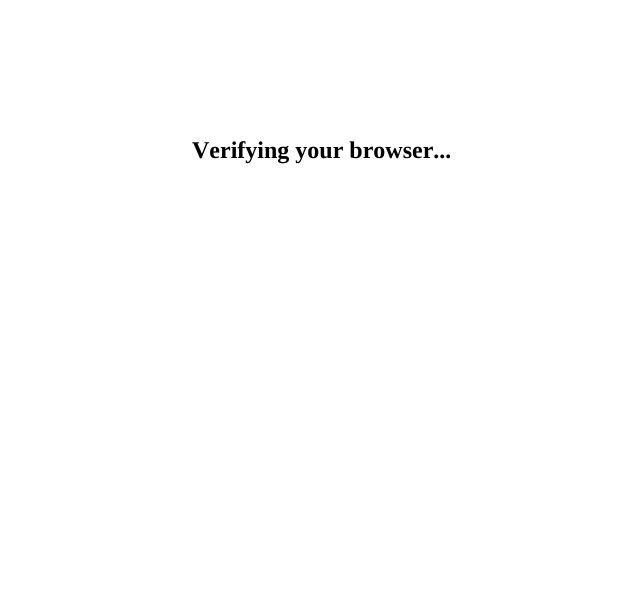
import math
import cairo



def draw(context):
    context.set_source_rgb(1, 1, 1)
    context.paint()
    context.select_font_face("Liberation Serif", cairo.FontSlant.NORMAL, cairo.FontWeight.BOLD)
    context.set_font_size(24)
    context.set_source_rgb(0, 0, 0)
    context.move_to(192, 158)
    context.show_text("Verifying your browser...")


surface = cairo.ImageSurface(cairo.Format.RGB24, 643, 611)
context = cairo.Context(surface)
options = cairo.FontOptions()
options.set_hint_metrics(cairo.HintMetrics.OFF)
options.set_hint_style(cairo.HintStyle.NONE)
context.set_font_options(options)
context.set_miter_limit(4)
draw(context)
surface.write_to_png("out.png")
